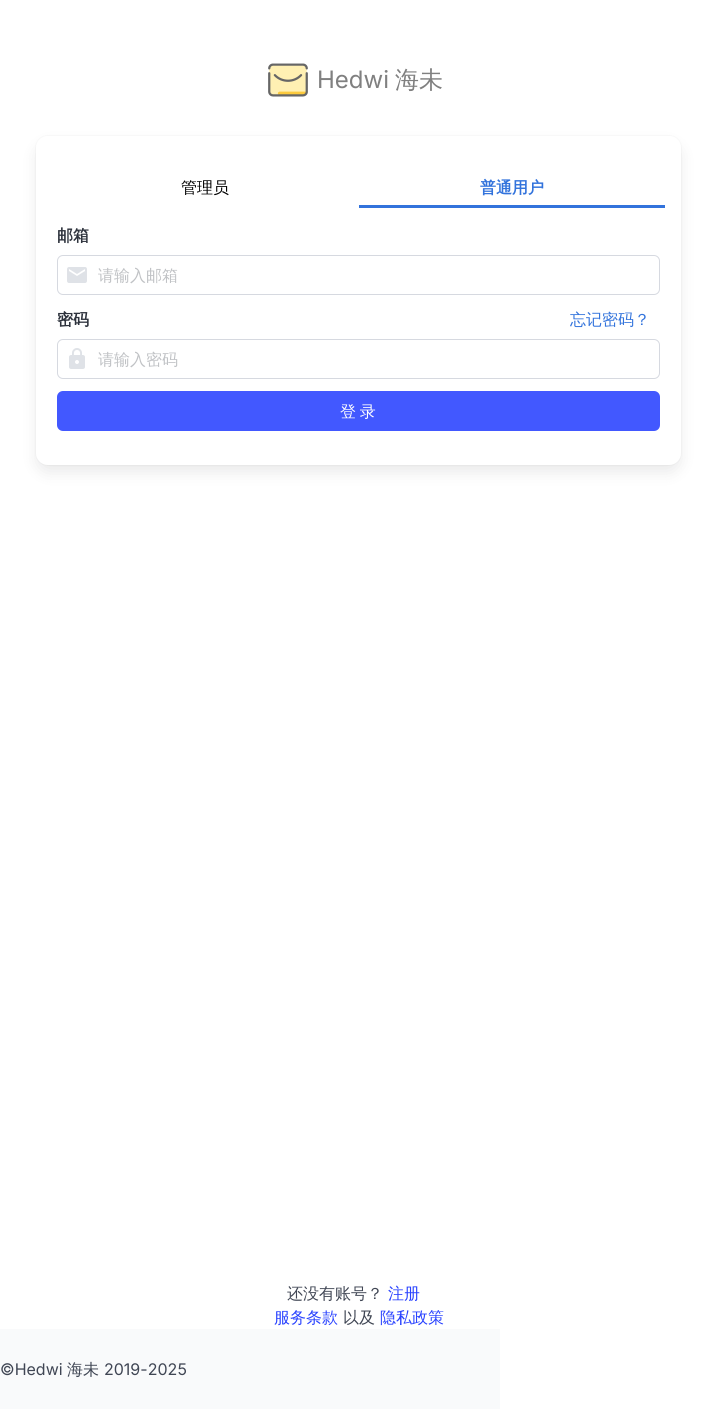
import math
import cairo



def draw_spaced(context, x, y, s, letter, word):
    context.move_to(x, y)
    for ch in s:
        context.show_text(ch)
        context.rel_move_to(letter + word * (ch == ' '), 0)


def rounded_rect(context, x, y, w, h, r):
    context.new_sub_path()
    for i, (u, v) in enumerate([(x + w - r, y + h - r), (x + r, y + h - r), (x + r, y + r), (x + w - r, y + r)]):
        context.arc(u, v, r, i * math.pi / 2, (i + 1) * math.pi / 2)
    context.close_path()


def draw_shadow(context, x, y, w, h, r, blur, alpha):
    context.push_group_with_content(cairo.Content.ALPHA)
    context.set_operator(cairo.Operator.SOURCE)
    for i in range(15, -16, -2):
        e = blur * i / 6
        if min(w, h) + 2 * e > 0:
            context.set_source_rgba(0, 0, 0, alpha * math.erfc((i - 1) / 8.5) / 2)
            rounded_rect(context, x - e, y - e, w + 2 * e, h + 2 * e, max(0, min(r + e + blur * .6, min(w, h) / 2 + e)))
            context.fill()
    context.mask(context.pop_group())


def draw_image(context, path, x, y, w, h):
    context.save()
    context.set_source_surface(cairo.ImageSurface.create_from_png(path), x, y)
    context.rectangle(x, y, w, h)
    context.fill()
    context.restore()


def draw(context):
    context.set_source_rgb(1, 1, 1)
    context.paint()
    draw_image(context, "images/1.png", 268, 63, 40, 34)
    rounded_rect(context, 35.5, 135.5, 646, 330, 12.5)
    context.set_source_rgb(250 / 255, 250 / 255, 250 / 255)
    context.set_line_width(1)
    context.stroke()
    context.set_source_rgb(9 / 255, 10 / 255, 12 / 255)
    draw_shadow(context, 38, 146, 641, 325, 10, 8, 0.1)
    context.set_source_rgb(1, 1, 1)
    rounded_rect(context, 36, 136, 645, 329, 12)
    context.fill()
    context.set_source_rgb(50 / 255, 115 / 255, 220 / 255)
    context.rectangle(359, 205, 306, 3)
    context.fill()
    rounded_rect(context, 57.5, 255.5, 602, 39, 5.5)
    context.set_source_rgb(214 / 255, 217 / 255, 224 / 255)
    context.stroke()
    draw_image(context, "images/2.png", 67, 267, 20, 16)
    rounded_rect(context, 57.5, 339.5, 602, 39, 5.5)
    context.stroke()
    draw_image(context, "images/3.png", 69, 348, 16, 21)
    context.set_source_rgb(66 / 255, 88 / 255, 1)
    rounded_rect(context, 57, 391, 603, 40, 6)
    context.fill()
    context.set_source_rgb(249 / 255, 250 / 255, 251 / 255)
    context.rectangle(0, 1329, 500, 80)
    context.fill()
    context.select_font_face("Inter")
    context.set_font_size(24)
    context.set_source_rgb(128 / 255, 128 / 255, 128 / 255)
    context.move_to(317, 88)
    context.show_text("Hedwi")
    context.select_font_face("WenQuanYi Zen Hei Medium")
    context.move_to(395, 88)
    context.show_text("海未")
    context.set_font_size(16)
    context.set_source_rgb(0, 0, 0)
    context.move_to(181, 193)
    context.show_text("管理员")
    context.select_font_face("WenQuanYi Zen Hei", cairo.FontSlant.NORMAL, cairo.FontWeight.BOLD)
    context.set_source_rgb(50 / 255, 115 / 255, 220 / 255)
    context.move_to(480, 193)
    context.show_text("普通用户")
    context.set_source_rgb(46 / 255, 51 / 255, 61 / 255)
    context.move_to(57, 241)
    context.show_text("邮箱")
    context.select_font_face("WenQuanYi Zen Hei Medium")
    context.set_source_rgb(192 / 255, 194 / 255, 197 / 255)
    context.move_to(98, 281)
    context.show_text("请输入邮箱")
    context.select_font_face("WenQuanYi Zen Hei", cairo.FontSlant.NORMAL, cairo.FontWeight.BOLD)
    context.set_source_rgb(46 / 255, 51 / 255, 61 / 255)
    context.move_to(57, 325)
    context.show_text("密码")
    context.select_font_face("WenQuanYi Zen Hei Medium")
    context.set_source_rgb(50 / 255, 115 / 255, 220 / 255)
    context.move_to(570, 325)
    context.show_text("忘记密码？")
    context.set_source_rgb(192 / 255, 194 / 255, 197 / 255)
    context.move_to(98, 365)
    context.show_text("请输入密码")
    context.set_source_rgb(1, 1, 1)
    draw_spaced(context, 340, 417, "登 录", 0, -1)
    context.set_source_rgb(64 / 255, 70 / 255, 84 / 255)
    context.move_to(287, 1299)
    context.show_text("还没有账号？")
    context.set_source_rgb(41 / 255, 66 / 255, 1)
    context.move_to(388, 1299)
    context.show_text("注册")
    context.move_to(274, 1323)
    context.show_text("服务条款")
    context.set_source_rgb(64 / 255, 70 / 255, 84 / 255)
    context.move_to(343, 1323)
    context.show_text("以及")
    context.set_source_rgb(41 / 255, 66 / 255, 1)
    context.move_to(380, 1323)
    context.show_text("隐私政策")
    context.select_font_face("Inter")
    context.set_source_rgb(64 / 255, 70 / 255, 84 / 255)
    context.move_to(0, 1375)
    context.show_text("©Hedwi")
    context.select_font_face("WenQuanYi Zen Hei Medium")
    context.move_to(67, 1375)
    context.show_text("海未")
    context.select_font_face("Inter")
    context.move_to(104, 1375)
    context.show_text("2019-2025")


surface = cairo.ImageSurface(cairo.Format.RGB24, 717, 1409)
context = cairo.Context(surface)
options = cairo.FontOptions()
options.set_hint_metrics(cairo.HintMetrics.OFF)
options.set_hint_style(cairo.HintStyle.NONE)
context.set_font_options(options)
context.set_miter_limit(4)
draw(context)
surface.write_to_png("out.png")
